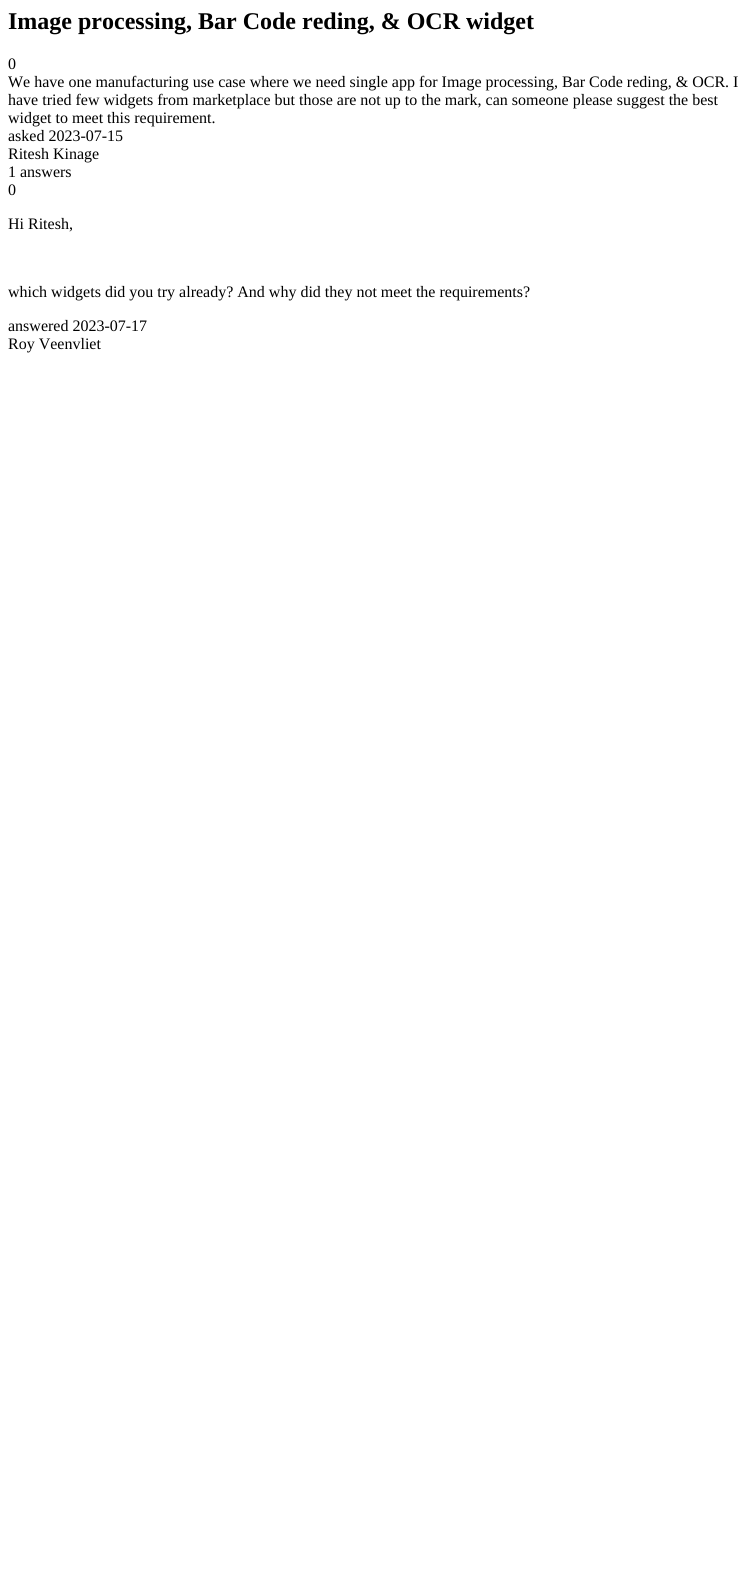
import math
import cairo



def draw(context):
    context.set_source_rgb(1, 1, 1)
    context.paint()
    context.select_font_face("Liberation Serif", cairo.FontSlant.NORMAL, cairo.FontWeight.BOLD)
    context.set_font_size(24)
    context.set_source_rgb(0, 0, 0)
    context.move_to(8, 29)
    context.show_text("Image processing, Bar Code reding, & OCR widget")
    context.select_font_face("Liberation Serif")
    context.set_font_size(16)
    context.move_to(8, 69)
    context.show_text("0")
    context.move_to(8, 87)
    context.show_text("We have one manufacturing use case where we need single app for Image processing, Bar Code reding, & OCR. I")
    context.move_to(8, 105)
    context.show_text("have tried few widgets from marketplace but those are not up to the mark, can someone please suggest the best")
    context.move_to(8, 123)
    context.show_text("widget to meet this requirement.")
    context.move_to(8, 141)
    context.show_text("asked 2023-07-15")
    context.move_to(8, 159)
    context.show_text("Ritesh Kinage")
    context.move_to(8, 177)
    context.show_text("1 answers")
    context.move_to(8, 195)
    context.show_text("0")
    context.move_to(8, 229)
    context.show_text("Hi Ritesh,")
    context.move_to(8, 297)
    context.show_text("which widgets did you try already? And why did they not meet the requirements?")
    context.move_to(8, 331)
    context.show_text("answered 2023-07-17")
    context.move_to(8, 349)
    context.show_text("Roy Veenvliet")


surface = cairo.ImageSurface(cairo.Format.RGB24, 754, 1569)
context = cairo.Context(surface)
options = cairo.FontOptions()
options.set_hint_metrics(cairo.HintMetrics.OFF)
options.set_hint_style(cairo.HintStyle.NONE)
context.set_font_options(options)
context.set_miter_limit(4)
draw(context)
surface.write_to_png("out.png")
